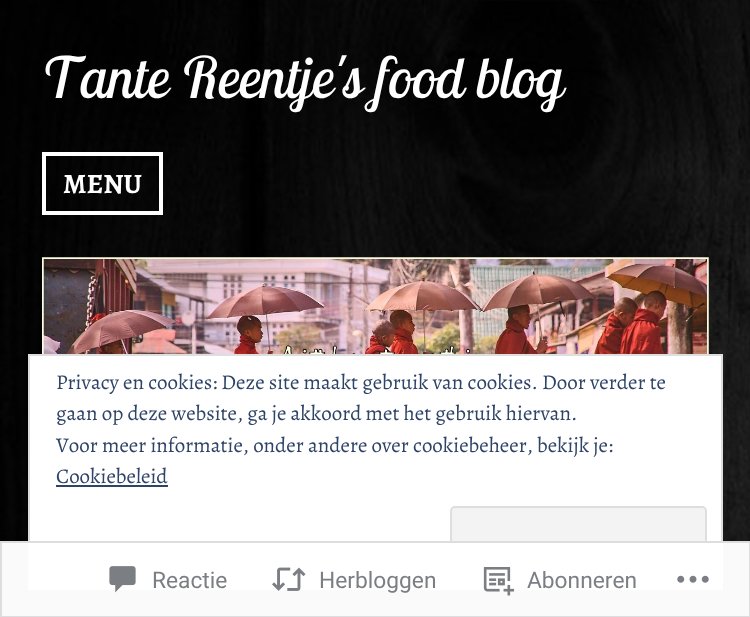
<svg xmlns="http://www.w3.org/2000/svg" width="750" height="617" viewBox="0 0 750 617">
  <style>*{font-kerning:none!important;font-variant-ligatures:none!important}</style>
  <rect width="100%" height="100%" fill="rgb(255,255,255)"/>
  <image x="0" y="0" width="750" height="617" href="pic1.png"/>
  <text x="42" y="98" font-family="Lobster Two" font-size="56.9" font-style="italic" fill="rgb(255,255,255)">Tante Reentje's food blog</text>
  <rect x="44" y="154" width="117" height="59" fill="none" stroke="rgb(255,255,255)" stroke-width="4"/>
  <text x="63" y="193" font-family="Alegreya" font-size="28" font-weight="bold" fill="rgb(255,255,255)">MENU</text>
  <image x="42" y="257" width="667" height="97" href="pic2.png"/>
  <rect x="29" y="355" width="693" height="234" fill="rgb(255,255,255)" stroke="rgb(222,222,222)" stroke-width="2"/>
  <g font-family="Alegreya" font-size="21" fill="rgb(46,68,103)">
    <text>
      <tspan x="56" y="389">Privacy en cookies: Deze site maakt gebruik van cookies. Door verder te</tspan>
      <tspan x="56" y="420">gaan op deze website, ga je akkoord met het gebruik hiervan.</tspan>
      <tspan x="56" y="452">Voor meer informatie, onder andere over cookiebeheer,</tspan>
    </text>
    <text x="537" y="452">bekijk je:</text>
    <text x="56" y="483">Cookiebeleid</text>
  </g>
  <rect x="56" y="485" width="112" height="2" fill="rgb(46,68,103)"/>
  <rect x="451" y="507" width="255" height="66" rx="4" fill="rgb(243,243,243)" stroke="rgb(222,222,222)" stroke-width="2"/>
  <rect x="0" y="541" width="750" height="76" fill="rgba(255,255,255,0.98)"/>
  <rect x="1" y="542" width="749" height="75" fill="none" stroke="rgba(220,220,222,0.98)" stroke-width="2"/>
  <image x="109" y="566" width="27" height="27" href="pic3.png"/>
  <text x="152" y="588" font-family="Roboto" font-size="22.75" fill="rgb(123,127,132)">Reactie</text>
  <image x="272" y="567" width="34" height="24" href="pic4.png"/>
  <text x="319" y="588" font-family="Roboto" font-size="22.75" fill="rgb(123,127,132)">Herbloggen</text>
  <image x="483" y="567" width="32" height="29" href="pic5.png"/>
  <text x="527" y="588" font-family="Roboto" font-size="22.75" fill="rgb(123,127,132)">Abonneren</text>
  <image x="677" y="575" width="32" height="8" href="pic6.png"/>
</svg>
